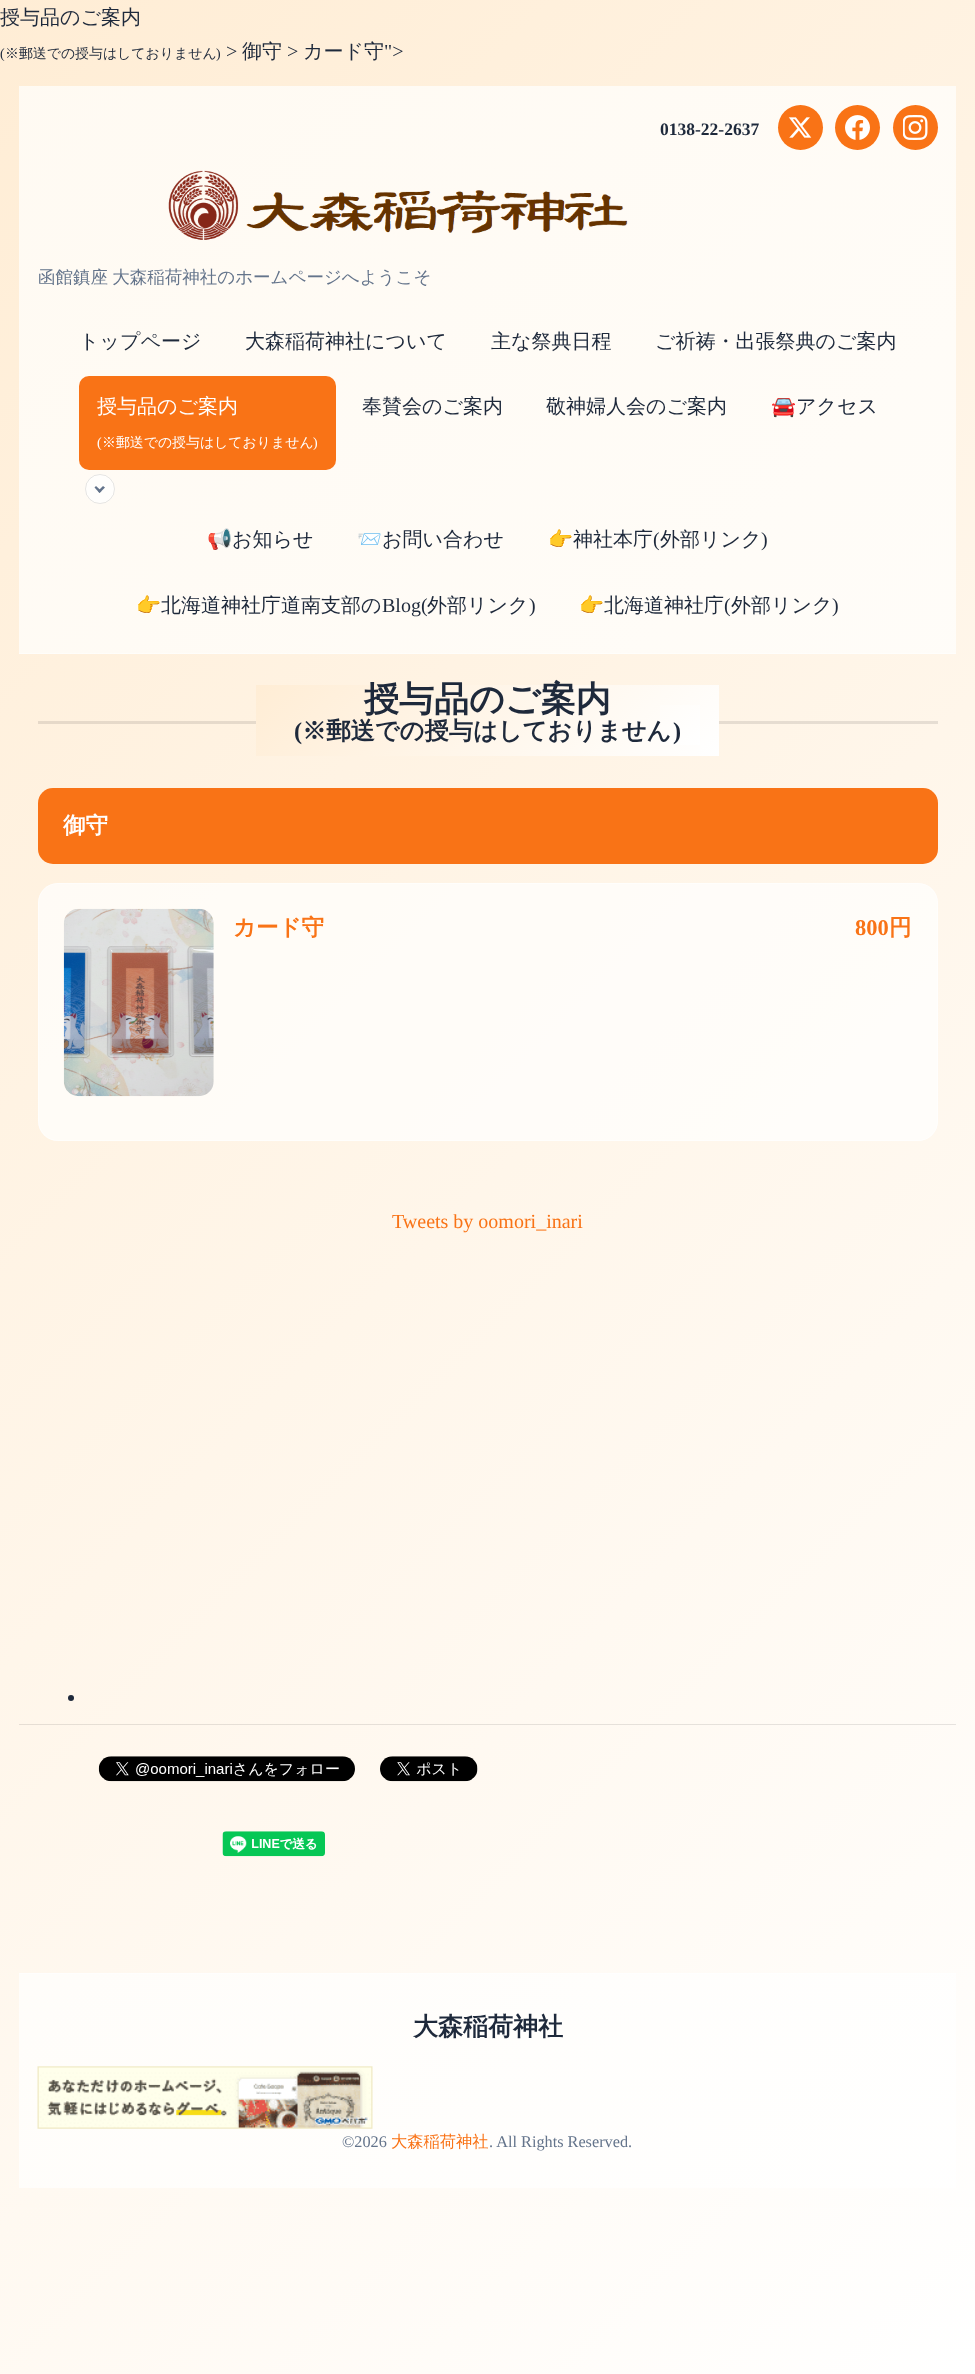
<svg xmlns="http://www.w3.org/2000/svg" width="975" height="2374" viewBox="0 0 975 2374">
  <defs>
    <linearGradient id="g1" gradientUnits="userSpaceOnUse" x1="-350" y1="350" x2="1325" y2="2025"><stop offset="0" stop-color="rgb(255,237,213)"/><stop offset="1" stop-color="rgb(255,255,255)"/></linearGradient>
    <linearGradient id="g2" gradientUnits="userSpaceOnUse" x1="-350" y1="350" x2="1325" y2="2025"><stop offset="0" stop-color="rgb(255,250,242)"/><stop offset="1" stop-color="rgb(255,255,255)"/></linearGradient>
    <linearGradient id="g3" gradientUnits="userSpaceOnUse" x1="-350" y1="350" x2="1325" y2="2025"><stop offset="0" stop-color="rgb(255,253,249)"/><stop offset="1" stop-color="rgb(255,255,255)"/></linearGradient>
    <linearGradient id="g4" gradientUnits="userSpaceOnUse" x1="-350" y1="350" x2="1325" y2="2025"><stop offset="0" stop-color="rgb(230,213,192)"/><stop offset="1" stop-color="rgb(230,230,230)"/></linearGradient>
    <linearGradient id="g5" gradientUnits="userSpaceOnUse" x1="354" y1="587" x2="621" y2="854"><stop offset="0" stop-color="rgb(255,237,213)"/><stop offset="1" stop-color="rgb(255,255,255)"/></linearGradient>
    <linearGradient id="g6" gradientUnits="userSpaceOnUse" x1="366" y1="594" x2="609" y2="836"><stop offset="0" stop-color="rgb(255,237,213)"/><stop offset="1" stop-color="rgb(255,255,255)"/></linearGradient>
  </defs>
  <rect width="100%" height="100%" fill="rgb(255,255,255)"/>
  <rect x="0" y="0" width="975" height="2374" fill="url(#g1)"/>
  <rect x="19" y="86" width="937" height="567" fill="url(#g2)"/>
  <rect x="19" y="653" width="937" height="1" fill="url(#g3)"/>
  <rect x="19" y="1974" width="937" height="214" fill="url(#g2)"/>
  <rect x="19" y="1973" width="937" height="1" fill="url(#g3)"/>
  <rect x="19" y="1724" width="937" height="1" fill="url(#g4)"/>
  <rect x="38" y="721" width="900" height="3" fill="url(#g4)"/>
  <text x="0" y="24" font-family="WenQuanYi Zen Hei" font-size="20" font-weight="500" fill="rgb(30,41,59)">授与品のご案内</text>
  <text x="0" y="58" font-family="Liberation Serif" font-size="13.9" fill="rgb(30,41,59)">(</text>
  <text x="5" y="58" font-family="WenQuanYi Zen Hei" font-size="13.9" font-weight="500" fill="rgb(30,41,59)">※郵送での授与はしておりません</text>
  <text x="216" y="58" font-family="Liberation Serif" font-size="13.9" fill="rgb(30,41,59)">)</text>
  <text x="226" y="58" font-family="Liberation Serif" font-size="20" fill="rgb(30,41,59)">&gt;</text>
  <text x="242" y="58" font-family="WenQuanYi Zen Hei" font-size="20" font-weight="500" fill="rgb(30,41,59)">御守</text>
  <text x="287" y="58" font-family="Liberation Serif" font-size="20" fill="rgb(30,41,59)">&gt;</text>
  <text x="303" y="58" font-family="WenQuanYi Zen Hei" font-size="20" font-weight="500" fill="rgb(30,41,59)">カード守</text>
  <text x="384" y="58" font-family="Liberation Serif" font-size="20" fill="rgb(30,41,59)">"&gt;</text>
  <text x="660" y="135" font-family="Liberation Serif" font-size="17.5" font-weight="bold" fill="rgb(30,41,59)">0138-22-2637</text>
  <circle cx="800.5" cy="127.5" r="22.5" fill="rgb(249,115,22)"/>
  <image x="788" y="117" width="24" height="21" href="pic1.png"/>
  <circle cx="857.5" cy="127.5" r="22.5" fill="rgb(249,115,22)"/>
  <image x="845" y="115" width="25" height="25" href="pic2.png"/>
  <circle cx="915.5" cy="127.5" r="22.5" fill="rgb(249,115,22)"/>
  <image x="903" y="115" width="25" height="25" href="pic3.png"/>
  <image x="168" y="170" width="460" height="70" href="pic4.png"/>
  <text x="38" y="283" word-spacing="-1" font-family="WenQuanYi Zen Hei" font-size="17.5" font-weight="500" fill="rgb(100,116,139)">函館鎮座 大森稲荷神社のホームページへようこそ</text>
  <g font-family="WenQuanYi Zen Hei" font-size="20" font-weight="500" fill="rgb(30,41,59)">
    <text x="79" y="348">トップページ</text>
    <text x="245" y="348">大森稲荷神社について</text>
    <text x="491" y="348">主な祭典日程</text>
    <text x="655" y="348">ご祈祷・出張祭典のご案内</text>
  </g>
  <rect x="79" y="376" width="257" height="94" rx="10" fill="rgb(249,115,22)"/>
  <text x="97" y="413" font-family="WenQuanYi Zen Hei" font-size="20" font-weight="500" fill="rgb(255,255,255)">授与品のご案内</text>
  <text x="97" y="447" font-family="Liberation Serif" font-size="13.9" fill="rgb(255,255,255)">(</text>
  <text x="102" y="447" font-family="WenQuanYi Zen Hei" font-size="13.9" font-weight="500" fill="rgb(255,255,255)">※郵送での授与はしておりません</text>
  <text x="313" y="447" font-family="Liberation Serif" font-size="13.9" fill="rgb(255,255,255)">)</text>
  <circle cx="100" cy="489" r="15" fill="rgb(255,254,252)"/>
  <circle cx="100" cy="489" r="14.5" fill="none" stroke="rgba(0,0,0,0.1)"/>
  <path d="M103 486L105 487.5L99.5 493L98 491Z" fill="rgb(100,116,139)"/>
  <path d="M96 486L101.5 491L99.5 493L94.5 487.5Z" fill="rgb(100,116,139)"/>
  <g font-family="WenQuanYi Zen Hei" font-size="20" font-weight="500" fill="rgb(30,41,59)">
    <text x="362" y="413">奉賛会のご案内</text>
    <text x="546" y="413">敬神婦人会のご案内</text>
  </g>
  <text x="771" y="413" font-family="Noto Color Emoji" font-size="20" fill="rgb(30,41,59)">🚘</text>
  <text x="796" y="413" font-family="WenQuanYi Zen Hei" font-size="20" font-weight="500" fill="rgb(30,41,59)">アクセス</text>
  <text x="207" y="546" font-family="Noto Color Emoji" font-size="20" fill="rgb(30,41,59)">📢</text>
  <text x="232" y="546" font-family="WenQuanYi Zen Hei" font-size="20" font-weight="500" fill="rgb(30,41,59)">お知らせ</text>
  <text x="357" y="546" font-family="Noto Color Emoji" font-size="20" fill="rgb(30,41,59)">📨</text>
  <text x="382" y="546" font-family="WenQuanYi Zen Hei" font-size="20" font-weight="500" fill="rgb(30,41,59)">お問い合わせ</text>
  <text x="548" y="546" font-family="Noto Color Emoji" font-size="20" fill="rgb(30,41,59)">👉</text>
  <text x="573" y="546" font-family="WenQuanYi Zen Hei" font-size="20" font-weight="500" fill="rgb(30,41,59)">神社本庁</text>
  <text x="653" y="546" font-family="Liberation Serif" font-size="20" fill="rgb(30,41,59)">(</text>
  <text x="660" y="546" font-family="WenQuanYi Zen Hei" font-size="20" font-weight="500" fill="rgb(30,41,59)">外部リンク</text>
  <text x="761" y="546" font-family="Liberation Serif" font-size="20" fill="rgb(30,41,59)">)</text>
  <text x="136" y="612" font-family="Noto Color Emoji" font-size="20" fill="rgb(30,41,59)">👉</text>
  <text x="161" y="612" font-family="WenQuanYi Zen Hei" font-size="20" font-weight="500" fill="rgb(30,41,59)">北海道神社庁道南支部の</text>
  <text x="382" y="612" font-family="Liberation Serif" font-size="20" fill="rgb(30,41,59)">Blog(</text>
  <text x="427" y="612" font-family="WenQuanYi Zen Hei" font-size="20" font-weight="500" fill="rgb(30,41,59)">外部リンク</text>
  <text x="529" y="612" font-family="Liberation Serif" font-size="20" fill="rgb(30,41,59)">)</text>
  <text x="579" y="612" font-family="Noto Color Emoji" font-size="20" fill="rgb(30,41,59)">👉</text>
  <text x="604" y="612" font-family="WenQuanYi Zen Hei" font-size="20" font-weight="500" fill="rgb(30,41,59)">北海道神社庁</text>
  <text x="724" y="612" font-family="Liberation Serif" font-size="20" fill="rgb(30,41,59)">(</text>
  <text x="731" y="612" font-family="WenQuanYi Zen Hei" font-size="20" font-weight="500" fill="rgb(30,41,59)">外部リンク</text>
  <text x="832" y="612" font-family="Liberation Serif" font-size="20" fill="rgb(30,41,59)">)</text>
  <rect x="256" y="685" width="463" height="71" fill="url(#g5)"/>
  <rect x="660" y="705" width="40" height="40" fill="url(#g6)"/>
  <text x="364" y="711" font-family="WenQuanYi Zen Hei" font-size="35" font-weight="bold" fill="rgb(30,41,59)">授与品のご案内</text>
  <text x="294" y="739" font-family="Liberation Serif" font-size="24.25" font-weight="bold" fill="rgb(30,41,59)">(</text>
  <text x="302" y="739" font-family="WenQuanYi Zen Hei" font-size="24.25" font-weight="bold" fill="rgb(30,41,59)">※郵送での授与はしておりません</text>
  <text x="673" y="739" font-family="Liberation Serif" font-size="24.25" font-weight="bold" fill="rgb(30,41,59)">)</text>
  <rect x="38" y="788" width="900" height="76" rx="15" fill="rgb(249,115,22)"/>
  <text x="63" y="833" font-family="WenQuanYi Zen Hei" font-size="22.5" font-weight="bold" fill="rgb(255,255,255)">御守</text>
  <rect x="38" y="883" width="900" height="258" rx="20" fill="rgba(255,255,255,0.7)"/>
  <rect x="38.5" y="883.5" width="899" height="257" rx="19.5" fill="none" stroke="rgba(255,255,255,0.5)"/>
  <image x="63" y="908" width="151" height="189" href="pic5.png"/>
  <text x="233" y="935" font-family="WenQuanYi Zen Hei" font-size="22.5" font-weight="bold" fill="rgb(249,115,22)">カード守</text>
  <text x="855" y="935" font-family="Liberation Serif" font-size="22.5" font-weight="bold" fill="rgb(249,115,22)">800</text>
  <text x="889" y="935" font-family="WenQuanYi Zen Hei" font-size="22.5" font-weight="bold" fill="rgb(249,115,22)">円</text>
  <text x="392" y="1228" font-family="Liberation Serif" font-size="20" fill="rgb(249,115,22)">Tweets by oomori_inari</text>
  <circle cx="71" cy="1698" r="3" fill="rgb(30,41,59)"/>
  <image x="98" y="1756" width="257" height="26" href="pic6.png"/>
  <image x="380" y="1756" width="98" height="26" href="pic7.png"/>
  <image x="222" y="1831" width="103" height="26" href="pic8.png"/>
  <text x="413" y="2035" font-family="WenQuanYi Zen Hei" font-size="25" font-weight="bold" fill="rgb(30,41,59)">大森稲荷神社</text>
  <image x="37" y="2066" width="336" height="63" href="pic9.png"/>
  <text x="342" y="2147" font-family="Liberation Serif" font-size="16.25" fill="rgb(100,116,139)">©2026</text>
  <text x="391" y="2147" font-family="WenQuanYi Zen Hei" font-size="16.25" font-weight="500" fill="rgb(249,115,22)">大森稲荷神社</text>
  <text x="489" y="2147" font-family="Liberation Serif" font-size="16.25" fill="rgb(100,116,139)">. All Rights Reserved.</text>
</svg>
